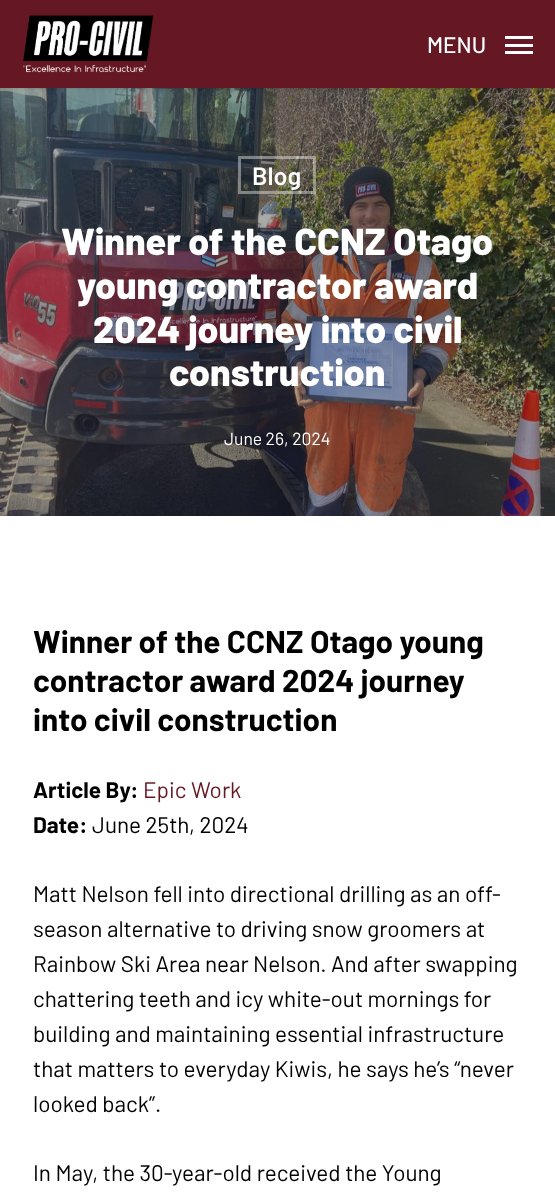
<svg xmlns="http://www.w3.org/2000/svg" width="555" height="1195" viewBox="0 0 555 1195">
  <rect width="100%" height="100%" fill="rgb(255,255,255)"/>
  <image x="0" y="88" width="555" height="428" href="pic2.png"/>
  <rect x="0" y="0" width="555" height="88" fill="rgba(0,0,0,0.22)" filter="blur(2px)"/>
  <rect x="0" y="0" width="555" height="88" fill="rgb(101,24,35)"/>
  <image x="23" y="15" width="131" height="58" href="pic1.png"/>
  <text x="427" y="53" font-family="Barlow" font-size="22.5" font-weight="500" fill="rgb(255,255,255)">MENU</text>
  <rect x="505" y="36" width="28" height="3" fill="rgb(255,255,255)"/>
  <rect x="505" y="51" width="28" height="3" fill="rgb(255,255,255)"/>
  <rect x="505" y="44" width="28" height="3" fill="rgb(255,255,255)"/>
  <rect x="239.5" y="157.5" width="75" height="35" fill="none" stroke="rgba(255,255,255,0.4)" stroke-width="3"/>
  <text x="252" y="185" font-family="Barlow" font-size="25" font-weight="600" fill="rgb(255,255,255)">Blog</text>
  <g font-family="Barlow" font-size="37.5" font-weight="800" fill="rgb(255,255,255)">
    <text x="61" y="255">Winner of the CCNZ Otago</text>
    <text x="77" y="299">young contractor award</text>
    <text x="93" y="343">2024 journey into civil</text>
    <text x="169" y="386">construction</text>
  </g>
  <text x="224" y="445" font-family="Barlow" font-size="17.5" fill="rgb(255,255,255)">June 26, 2024</text>
  <g font-family="Barlow" font-size="31.5" font-weight="bold" fill="rgb(0,0,0)">
    <text>
      <tspan x="33" y="653">Winner of the CCNZ Otago young</tspan>
      <tspan x="33" y="692">contractor award 2024 journey</tspan>
      <tspan x="33" y="731">into civil construction</tspan>
    </text>
  </g>
  <text x="33" y="798" font-family="Barlow" font-size="22.5" font-weight="bold" fill="rgb(0,0,0)">Article By:</text>
  <text x="143" y="798" font-family="Barlow" font-size="22.5" fill="rgb(101,24,35)">Epic Work</text>
  <text x="33" y="833" font-family="Barlow" font-size="22.5" font-weight="bold" fill="rgb(0,0,0)">Date:</text>
  <g font-family="Barlow" font-size="22.5" fill="rgb(0,0,0)">
    <text x="92" y="833">June 25th, 2024</text>
    <text>
      <tspan x="33" y="902">Matt Nelson fell into directional drilling as an off-</tspan>
      <tspan x="33" y="937">season alternative to driving snow groomers at</tspan>
      <tspan x="33" y="972">Rainbow Ski Area near Nelson. And after swapping</tspan>
      <tspan x="33" y="1007">chattering teeth and icy white-out mornings for</tspan>
      <tspan x="33" y="1042">building and maintaining essential infrastructure</tspan>
      <tspan x="33" y="1077">that matters to everyday Kiwis, he says he’s “never</tspan>
      <tspan x="33" y="1112">looked back”.</tspan>
    </text>
    <text x="33" y="1181">In May, the 30-year-old received the Young</text>
  </g>
</svg>
